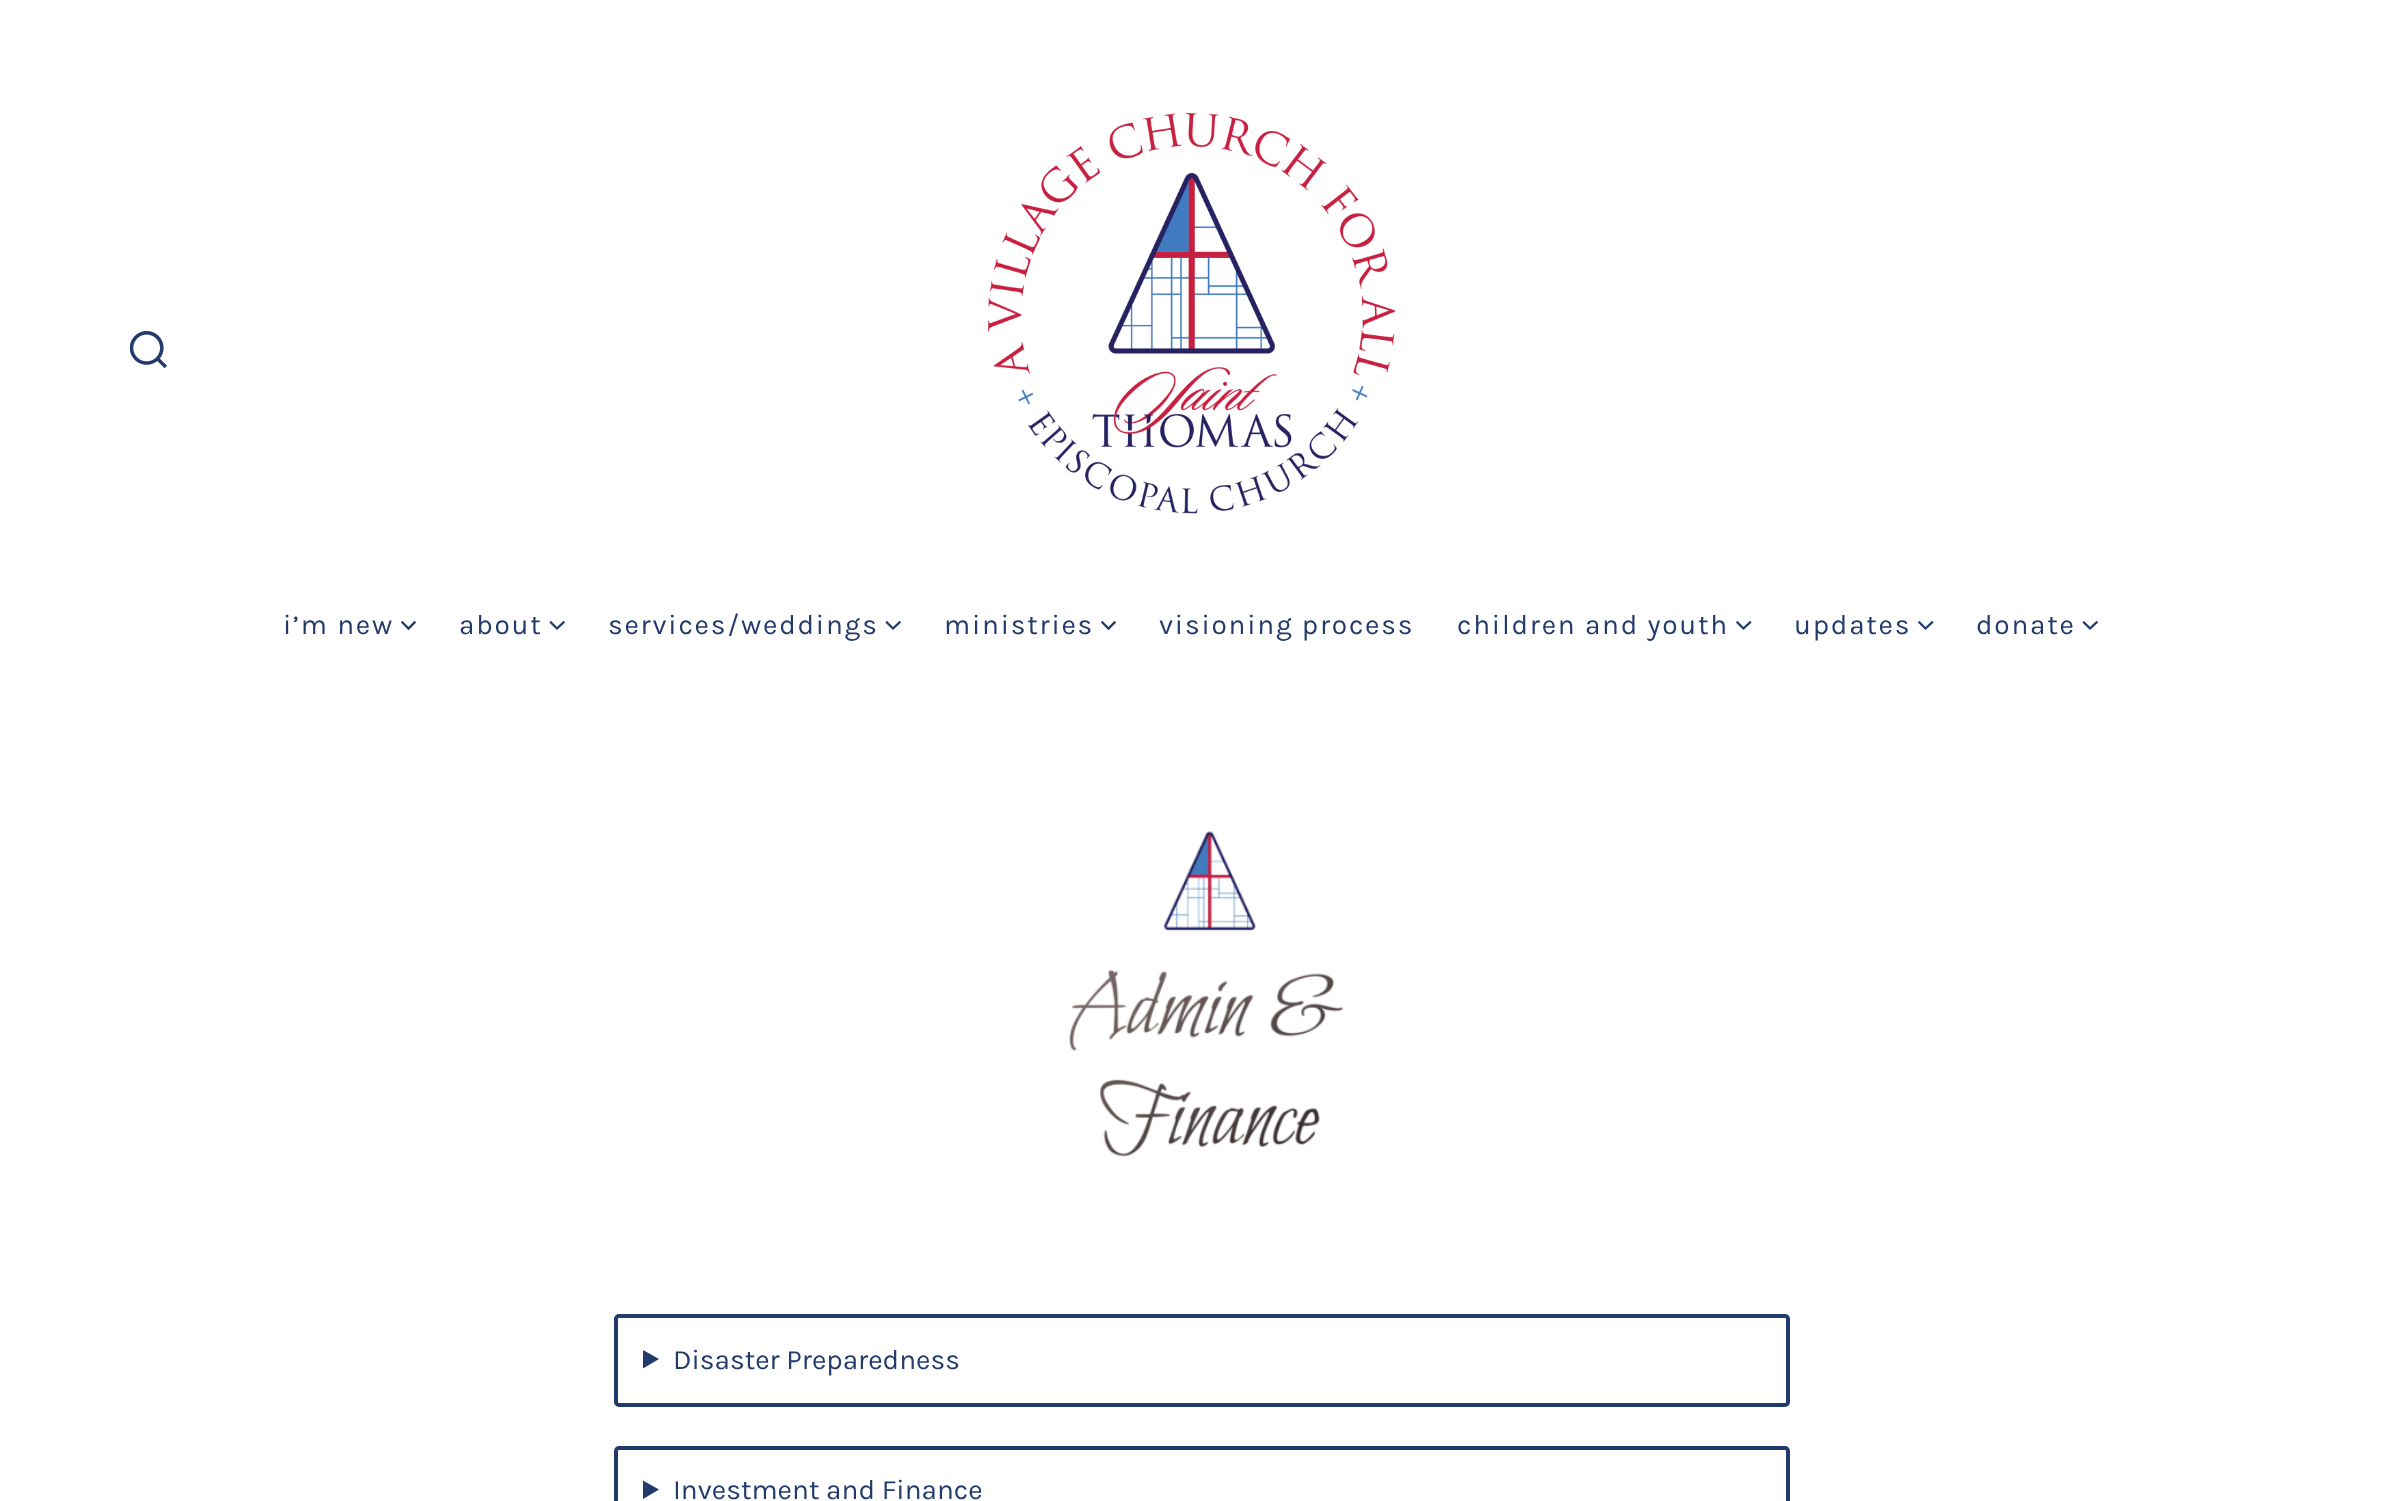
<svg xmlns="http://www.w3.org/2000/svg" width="2402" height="1501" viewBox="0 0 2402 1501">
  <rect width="100%" height="100%" fill="rgb(255,255,255)"/>
  <image x="130" y="331" width="37" height="38" href="pic1.png"/>
  <image x="988" y="112" width="408" height="402" href="pic2.png"/>
  <text x="283" y="634" font-family="Karla" font-size="28" letter-spacing="1.75" fill="rgb(35,58,108)">i’m new</text>
  <path d="M402.5 622.5L408.5 628.5L414.5 622.5" fill="none" stroke="rgb(35,58,108)" stroke-width="2.3" stroke-linecap="square"/>
  <text x="459" y="634" font-family="Karla" font-size="28" letter-spacing="1.75" fill="rgb(35,58,108)">about</text>
  <path d="M551 622.5L557 628.5L563.5 622.5" fill="none" stroke="rgb(35,58,108)" stroke-width="2.3" stroke-linecap="square"/>
  <text x="608" y="634" font-family="Karla" font-size="28" letter-spacing="1.75" fill="rgb(35,58,108)">services/weddings</text>
  <path d="M887 622.5L893 628.5L899.5 622.5" fill="none" stroke="rgb(35,58,108)" stroke-width="2.3" stroke-linecap="square"/>
  <text x="944" y="634" font-family="Karla" font-size="28" letter-spacing="1.75" fill="rgb(35,58,108)">ministries</text>
  <path d="M1102.5 622.5L1108.5 628.5L1114.5 622.5" fill="none" stroke="rgb(35,58,108)" stroke-width="2.3" stroke-linecap="square"/>
  <g font-family="Karla" font-size="28" letter-spacing="1.75" fill="rgb(35,58,108)">
    <text x="1159" y="634">visioning process</text>
    <text x="1457" y="634">children and youth</text>
  </g>
  <path d="M1737.5 622.5L1743.5 628.5L1750 622.5" fill="none" stroke="rgb(35,58,108)" stroke-width="2.3" stroke-linecap="square"/>
  <text x="1794" y="634" font-family="Karla" font-size="28" letter-spacing="1.75" fill="rgb(35,58,108)">updates</text>
  <path d="M1919.5 622.5L1925.5 628.5L1932 622.5" fill="none" stroke="rgb(35,58,108)" stroke-width="2.3" stroke-linecap="square"/>
  <text x="1976" y="634" font-family="Karla" font-size="28" letter-spacing="1.75" fill="rgb(35,58,108)">donate</text>
  <path d="M2084 622.5L2090 628.5L2096.5 622.5" fill="none" stroke="rgb(35,58,108)" stroke-width="2.3" stroke-linecap="square"/>
  <image x="1069" y="831" width="275" height="326" href="pic3.png"/>
  <rect x="616" y="1316" width="1172" height="89" rx="3" fill="none" stroke="rgb(35,58,108)" stroke-width="4"/>
  <path d="M643 1350L659 1359L643 1368.5Z" fill="rgb(35,58,108)"/>
  <text x="673" y="1369" font-family="Karla" font-size="28" fill="rgb(35,58,108)">Disaster Preparedness</text>
  <rect x="616" y="1448" width="1172" height="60" rx="3" fill="none" stroke="rgb(35,58,108)" stroke-width="4"/>
  <path d="M643 1480.5L659 1489.5L643 1499Z" fill="rgb(35,58,108)"/>
  <text x="673" y="1499" font-family="Karla" font-size="28" fill="rgb(35,58,108)">Investment and Finance</text>
</svg>
